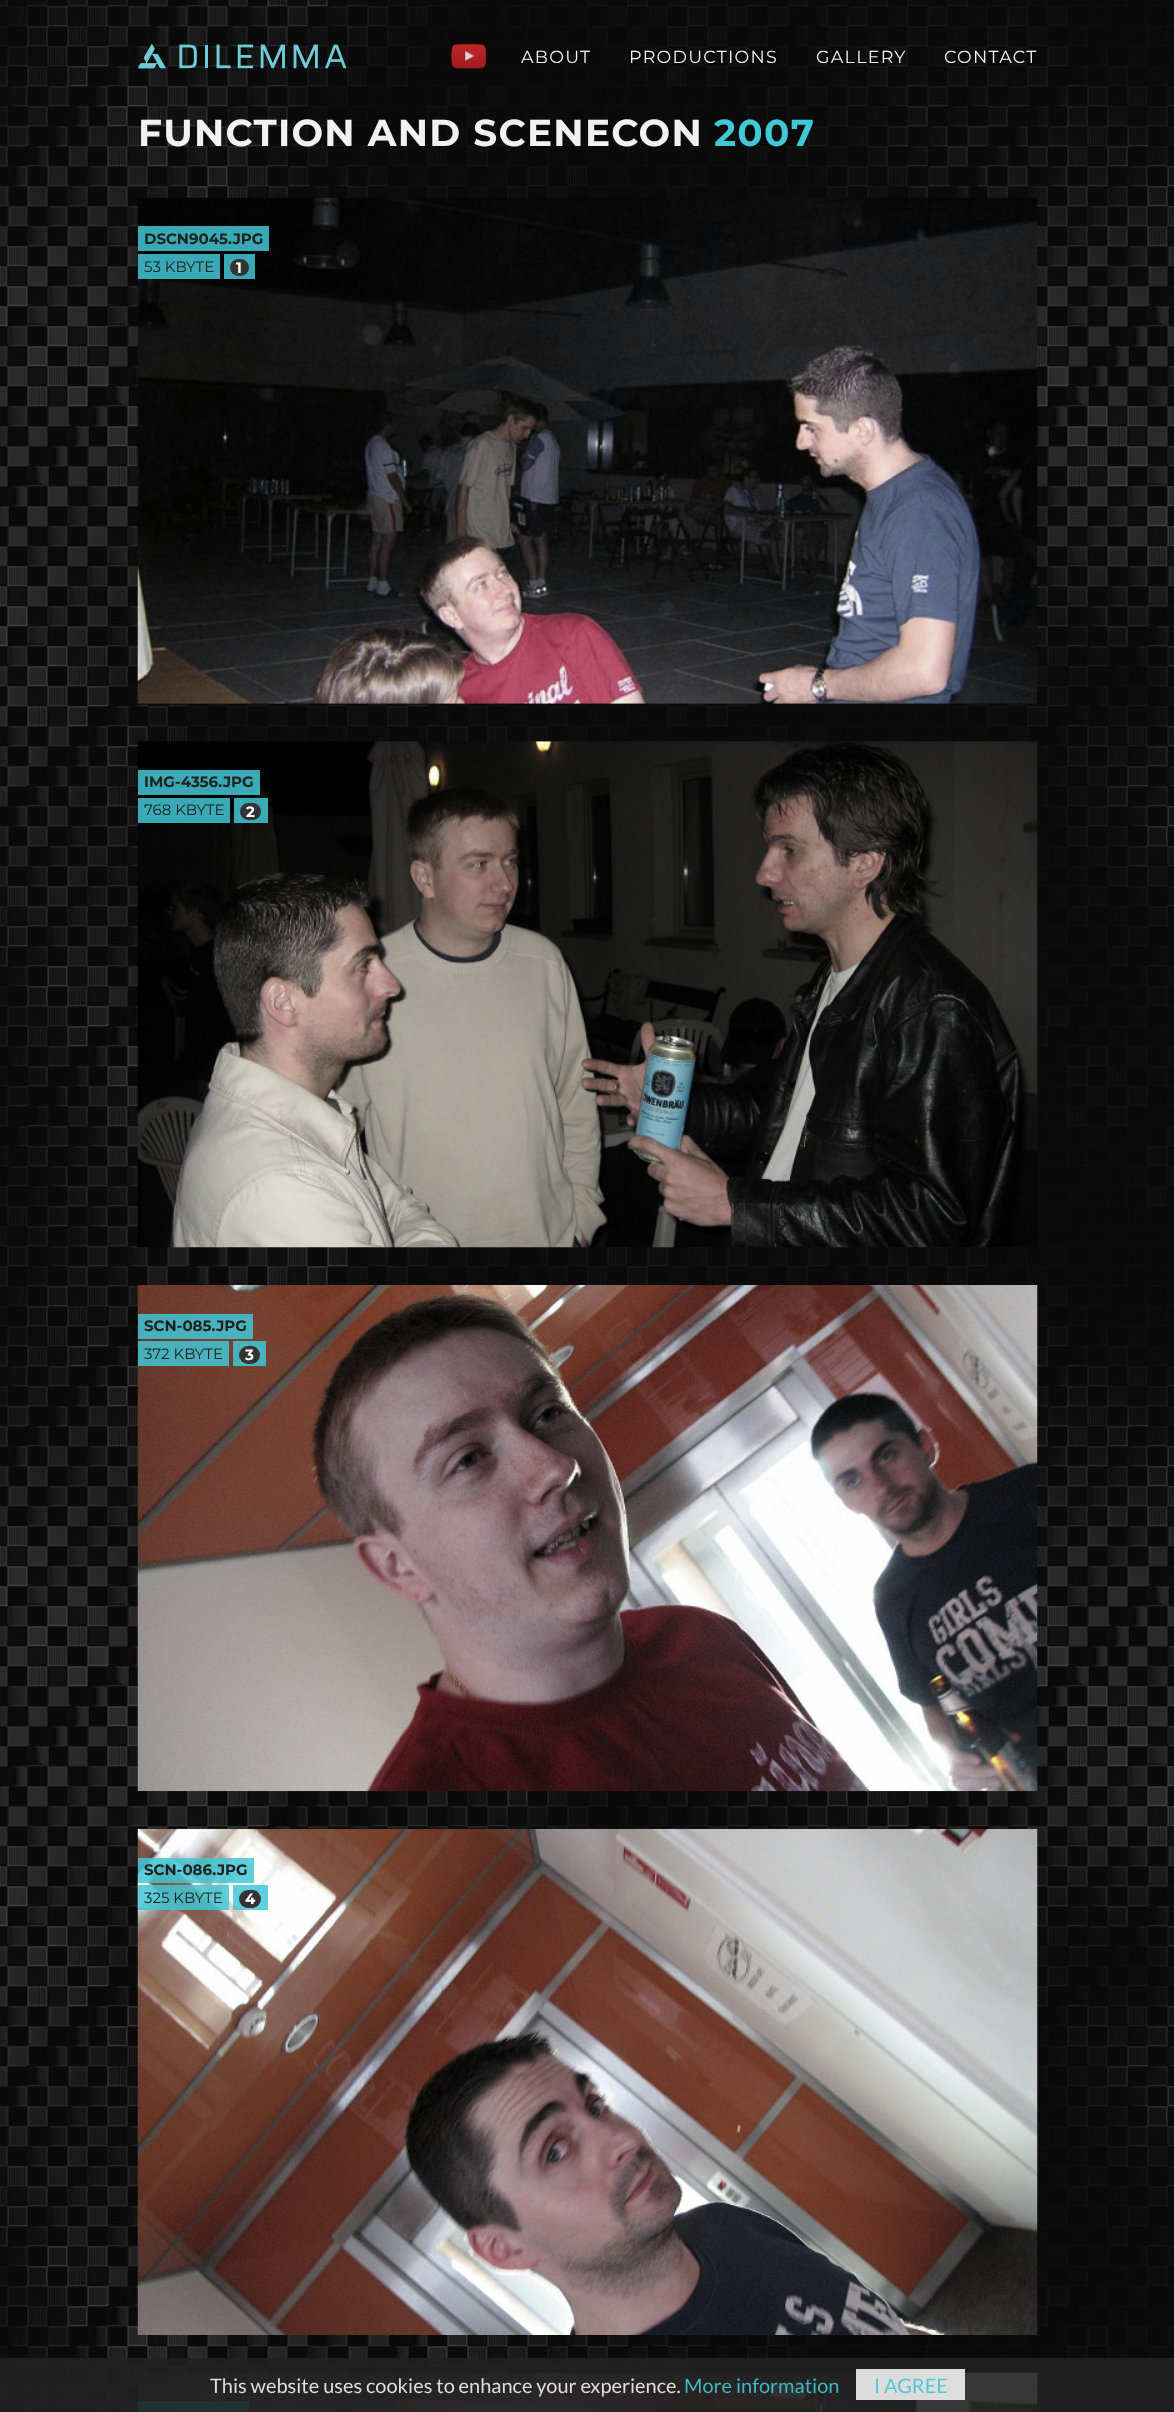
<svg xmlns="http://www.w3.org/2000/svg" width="1174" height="2412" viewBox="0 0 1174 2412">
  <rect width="100%" height="100%" fill="rgb(255,255,255)"/>
  <image x="0" y="0" width="1174" height="2412" href="pic1.png"/>
  <image x="138" y="44" width="209" height="25" href="pic2.png"/>
  <image x="451" y="43" width="36" height="26" href="pic3.png"/>
  <g font-family="Montserrat" font-size="17.5" letter-spacing="1.25" fill="rgb(241,241,241)">
    <text x="521" y="63">ABOUT</text>
    <text x="629" y="63">PRODUCTIONS</text>
    <text x="816" y="63">GALLERY</text>
    <text x="944" y="63">CONTACT</text>
  </g>
  <text x="138" y="146" font-family="Montserrat" font-size="37.5" font-weight="bold" letter-spacing="1.25" fill="rgb(241,241,241)">FUNCTION AND SCENECON</text>
  <text x="714" y="146" font-family="Montserrat" font-size="37.5" font-weight="bold" letter-spacing="1.25" fill="rgb(66,199,213)">2007</text>
  <image x="137" y="197" width="901" height="507" href="pic4.png"/>
  <rect x="138" y="226" width="131" height="25" fill="rgba(66,199,213,0.85)"/>
  <text x="144" y="244" font-family="Montserrat" font-size="15" font-weight="bold" fill="rgb(32,32,32)">DSCN9045.JPG</text>
  <rect x="138" y="254" width="82" height="25" fill="rgba(66,199,213,0.85)"/>
  <text x="144" y="272" font-family="Montserrat" font-size="15" fill="rgb(32,32,32)">53 KBYTE</text>
  <rect x="224" y="254" width="31" height="25" fill="rgba(66,199,213,0.85)"/>
  <rect x="230" y="259" width="19" height="17" rx="8.5" fill="rgb(51,51,51)"/>
  <text x="236" y="273" font-family="Montserrat" font-size="15" font-weight="bold" fill="rgb(255,255,255)">1</text>
  <image x="137" y="741" width="901" height="507" href="pic5.png"/>
  <rect x="138" y="770" width="122" height="25" fill="rgba(66,199,213,0.85)"/>
  <text x="144" y="787" font-family="Montserrat" font-size="15" font-weight="bold" fill="rgb(32,32,32)">IMG-4356.JPG</text>
  <rect x="138" y="798" width="92" height="25" fill="rgba(66,199,213,0.85)"/>
  <text x="144" y="815" font-family="Montserrat" font-size="15" fill="rgb(32,32,32)">768 KBYTE</text>
  <rect x="234" y="798" width="34" height="25" fill="rgba(66,199,213,0.85)"/>
  <rect x="240" y="803" width="21" height="17" rx="8.5" fill="rgb(51,51,51)"/>
  <text x="246" y="817" font-family="Montserrat" font-size="15" font-weight="bold" fill="rgb(255,255,255)">2</text>
  <image x="137" y="1285" width="901" height="507" href="pic6.png"/>
  <rect x="138" y="1314" width="115" height="25" fill="rgba(66,199,213,0.85)"/>
  <text x="144" y="1331" font-family="Montserrat" font-size="15" font-weight="bold" fill="rgb(32,32,32)">SCN-085.JPG</text>
  <rect x="138" y="1341" width="91" height="25" fill="rgba(66,199,213,0.85)"/>
  <text x="144" y="1359" font-family="Montserrat" font-size="15" fill="rgb(32,32,32)">372 KBYTE</text>
  <rect x="233" y="1341" width="33" height="25" fill="rgba(66,199,213,0.85)"/>
  <rect x="239" y="1346" width="21" height="18" rx="9" fill="rgb(51,51,51)"/>
  <text x="245" y="1360" font-family="Montserrat" font-size="15" font-weight="bold" fill="rgb(255,255,255)">3</text>
  <image x="137" y="1828" width="901" height="507" href="pic7.png"/>
  <rect x="138" y="1858" width="116" height="25" fill="rgba(66,199,213,0.85)"/>
  <text x="144" y="1875" font-family="Montserrat" font-size="15" font-weight="bold" fill="rgb(32,32,32)">SCN-086.JPG</text>
  <rect x="138" y="1885" width="91" height="25" fill="rgba(66,199,213,0.85)"/>
  <text x="144" y="1903" font-family="Montserrat" font-size="15" fill="rgb(32,32,32)">325 KBYTE</text>
  <rect x="233" y="1885" width="35" height="25" fill="rgba(66,199,213,0.85)"/>
  <rect x="239" y="1890" width="22" height="18" rx="9" fill="rgb(51,51,51)"/>
  <text x="245" y="1904" font-family="Montserrat" font-size="15" font-weight="bold" fill="rgb(255,255,255)">4</text>
  <image x="137" y="2372" width="901" height="40" href="pic8.png"/>
  <rect x="138" y="2401" width="111" height="11" fill="rgba(66,199,213,0.85)"/>
  <rect x="0" y="2358" width="1174" height="54" fill="rgba(33,33,33,0.9)"/>
  <text x="210" y="2393" font-family="Lato" font-size="20" fill="rgb(221,221,221)">This website uses cookies to enhance your experience.</text>
  <text x="684" y="2393" font-family="Lato" font-size="20" fill="rgb(63,183,195)">More information</text>
  <rect x="856" y="2369" width="109" height="31" fill="rgba(241,241,241,0.9)"/>
  <text x="874" y="2393" font-family="Lato" font-size="20" fill="rgb(82,201,214)">I AGREE</text>
</svg>
